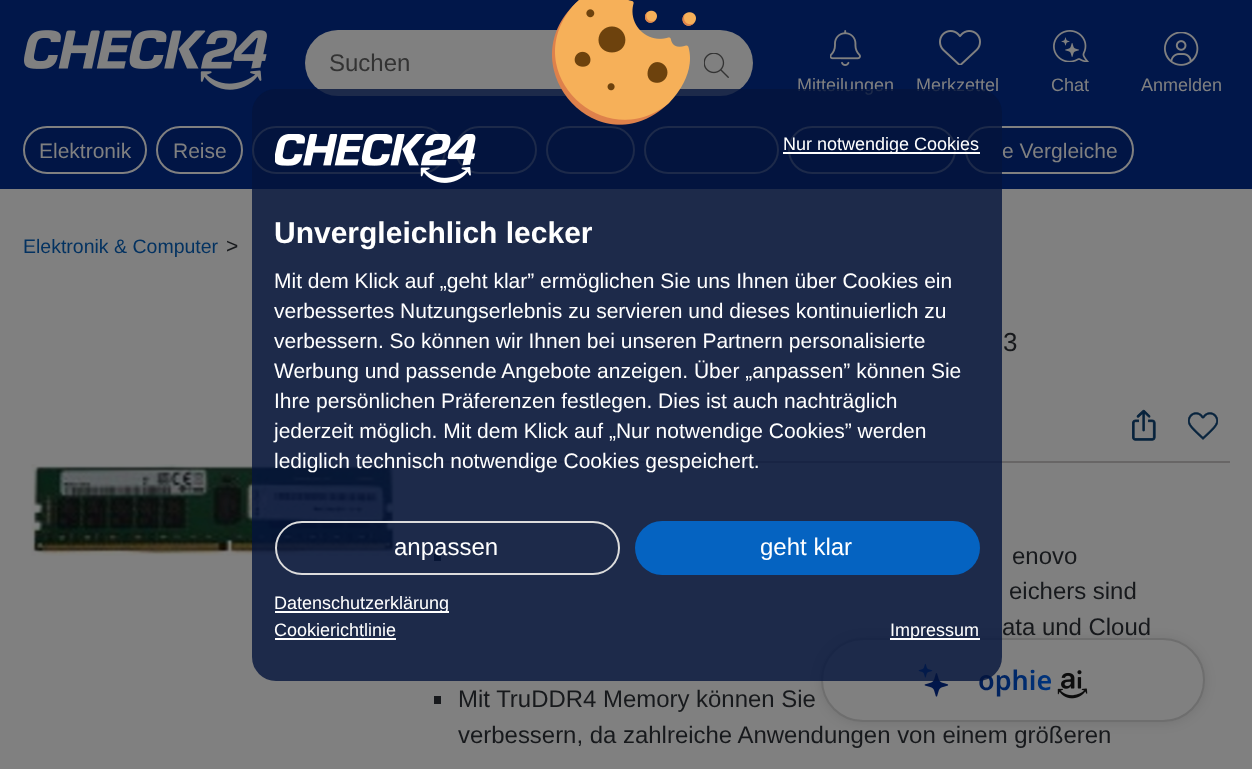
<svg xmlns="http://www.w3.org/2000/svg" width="1252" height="769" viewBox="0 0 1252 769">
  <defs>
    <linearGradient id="g1" gradientUnits="userSpaceOnUse" x1="963" y1="680" x2="1055" y2="680"><stop offset="0" stop-color="rgb(1,23,74)"/><stop offset="1" stop-color="rgb(0,54,128)"/></linearGradient>
  </defs>
  <rect width="100%" height="100%" fill="rgb(128,128,128)"/>
  <rect x="0" y="0" width="1252" height="189" fill="rgb(1,23,74)"/>
  <image x="24" y="30" width="243" height="60" href="pic1.png"/>
  <rect x="305" y="30" width="448" height="66" rx="33" fill="rgb(128,128,128)"/>
  <text x="329" y="71" font-family="Liberation Sans" font-size="24" fill="rgb(51,51,51)">Suchen</text>
  <image x="704" y="53" width="25" height="25" href="pic2.png"/>
  <image x="830" y="30" width="31" height="36" href="pic3.png"/>
  <text x="797" y="91" font-family="Liberation Sans" font-size="18" fill="rgb(128,128,128)">Mitteilungen</text>
  <image x="939" y="30" width="42" height="35" href="pic4.png"/>
  <text x="916" y="91" font-family="Liberation Sans" font-size="18" fill="rgb(128,128,128)">Merkzettel</text>
  <image x="1053" y="30" width="36" height="32" href="pic5.png"/>
  <text x="1051" y="91" font-family="Liberation Sans" font-size="18" fill="rgb(128,128,128)">Chat</text>
  <image x="1164" y="32" width="35" height="34" href="pic6.png"/>
  <text x="1141" y="91" font-family="Liberation Sans" font-size="18" fill="rgb(128,128,128)">Anmelden</text>
  <rect x="24" y="127" width="122" height="46" rx="23" fill="rgb(1,21,69)" stroke="rgb(128,128,128)" stroke-width="2"/>
  <text x="39" y="158" font-family="Liberation Sans" font-size="21" fill="rgb(128,128,128)">Elektronik</text>
  <rect x="157" y="127" width="85" height="46" rx="23" fill="rgb(1,21,69)" stroke="rgb(128,128,128)" stroke-width="2"/>
  <text x="173" y="158" font-family="Liberation Sans" font-size="21" fill="rgb(128,128,128)">Reise</text>
  <rect x="253" y="127" width="192" height="46" rx="23" fill="rgb(1,21,69)" stroke="rgb(128,128,128)" stroke-width="2"/>
  <rect x="456" y="127" width="80" height="46" rx="23" fill="rgb(1,21,69)" stroke="rgb(128,128,128)" stroke-width="2"/>
  <rect x="547" y="127" width="87" height="46" rx="23" fill="rgb(1,21,69)" stroke="rgb(128,128,128)" stroke-width="2"/>
  <rect x="645" y="127" width="133" height="46" rx="23" fill="rgb(1,21,69)" stroke="rgb(128,128,128)" stroke-width="2"/>
  <rect x="789" y="127" width="166" height="46" rx="23" fill="rgb(1,21,69)" stroke="rgb(128,128,128)" stroke-width="2"/>
  <rect x="966" y="127" width="167" height="46" rx="23" fill="rgb(1,21,69)" stroke="rgb(128,128,128)" stroke-width="2"/>
  <text x="1002" y="158" font-family="Liberation Sans" font-size="21" fill="rgb(128,128,128)">e Vergleiche</text>
  <text x="23" y="253" font-family="Liberation Sans" font-size="19.5" fill="rgb(3,50,97)">Elektronik &amp; Computer</text>
  <text x="226" y="253" font-family="Liberation Sans" font-size="21" fill="rgb(23,25,28)">&gt;</text>
  <image x="31" y="464" width="364" height="92" href="pic7.png"/>
  <text x="1003" y="351" font-family="Liberation Sans" font-size="26" fill="rgb(23,25,28)">3</text>
  <rect x="435" y="461" width="795" height="2" fill="rgb(104,102,102)"/>
  <image x="1132" y="409" width="24" height="32" href="pic8.png"/>
  <image x="1188" y="412" width="30" height="28" href="pic9.png"/>
  <rect x="434" y="554" width="7" height="7" fill="rgb(23,25,28)"/>
  <g font-family="Liberation Sans" font-size="23.95" fill="rgb(23,25,28)">
    <text x="1012" y="564">enovo</text>
    <text x="1009" y="599">eichers sind</text>
    <text x="1002" y="635">ata und Cloud</text>
  </g>
  <rect x="434" y="696" width="7" height="8" fill="rgb(23,25,28)"/>
  <g font-family="Liberation Sans" font-size="23.95" fill="rgb(23,25,28)">
    <text>
      <tspan x="458" y="707">Mit TruDDR4 Memory können Sie</tspan>
      <tspan x="458" y="743">verbessern, da zahlreiche Anwendungen von einem größeren</tspan>
    </text>
  </g>
  <rect x="821" y="639" width="384" height="84" rx="42" fill="rgba(0,0,0,0.1)" filter="blur(6px)"/>
  <rect x="822" y="639" width="382" height="82" rx="41" fill="rgb(128,128,128)" stroke="rgb(110,110,110)" stroke-width="2"/>
  <image x="918" y="663" width="31" height="34" href="pic10.png"/>
  <text x="978" y="690" font-family="Noto Sans" font-size="27" font-weight="600" fill="url(#g1)">ophie</text>
  <image x="1057" y="670" width="31" height="29" href="pic11.png"/>
  <rect x="252" y="89" width="750" height="592" rx="24" fill="rgba(4,20,60,0.8)"/>
  <image x="552" y="0" width="144" height="125" href="pic12.png"/>
  <image x="275" y="134" width="201" height="49" href="pic13.png"/>
  <rect x="783" y="152" width="197" height="2" fill="rgb(255,255,255)"/>
  <text x="783" y="150" font-family="Liberation Sans" font-size="18" fill="rgb(255,255,255)">Nur notwendige Cookies</text>
  <text x="274" y="243" font-family="Liberation Sans" font-size="30" font-weight="bold" fill="rgb(255,255,255)">Unvergleichlich lecker</text>
  <g font-family="Liberation Sans" font-size="21" fill="rgb(255,255,255)">
    <text>
      <tspan x="274" y="288">Mit dem Klick auf „geht klar” ermöglichen Sie uns Ihnen über Cookies ein</tspan>
      <tspan x="274" y="318">verbessertes Nutzungserlebnis zu servieren und dieses kontinuierlich zu</tspan>
      <tspan x="274" y="348">verbessern. So können wir Ihnen bei unseren Partnern personalisierte</tspan>
      <tspan x="274" y="378">Werbung und passende Angebote anzeigen. Über „anpassen” können Sie</tspan>
      <tspan x="274" y="408">Ihre persönlichen Präferenzen festlegen. Dies ist auch nachträglich</tspan>
      <tspan x="274" y="438">jederzeit möglich. Mit dem Klick auf „Nur notwendige Cookies” werden</tspan>
      <tspan x="274" y="468">lediglich technisch notwendige Cookies gespeichert.</tspan>
    </text>
  </g>
  <rect x="276" y="522" width="343" height="52" rx="26" fill="none" stroke="rgb(220,220,220)" stroke-width="2"/>
  <text x="394" y="555" font-family="Liberation Sans" font-size="24" fill="rgb(255,255,255)">anpassen</text>
  <rect x="635" y="521" width="345" height="54" rx="27" fill="rgb(5,99,193)"/>
  <text x="760" y="555" font-family="Liberation Sans" font-size="24" fill="rgb(255,255,255)">geht klar</text>
  <rect x="275" y="611" width="174" height="2" fill="rgb(255,255,255)"/>
  <g font-family="Liberation Sans" font-size="18" fill="rgb(255,255,255)">
    <text>
      <tspan x="274" y="609">Datenschutzerklärung</tspan>
      <tspan x="274" y="636">Cookierichtlinie</tspan>
    </text>
  </g>
  <rect x="275" y="638" width="121" height="2" fill="rgb(255,255,255)"/>
  <rect x="890" y="638" width="90" height="2" fill="rgb(255,255,255)"/>
  <text x="890" y="636" font-family="Liberation Sans" font-size="18" fill="rgb(255,255,255)">Impressum</text>
</svg>
